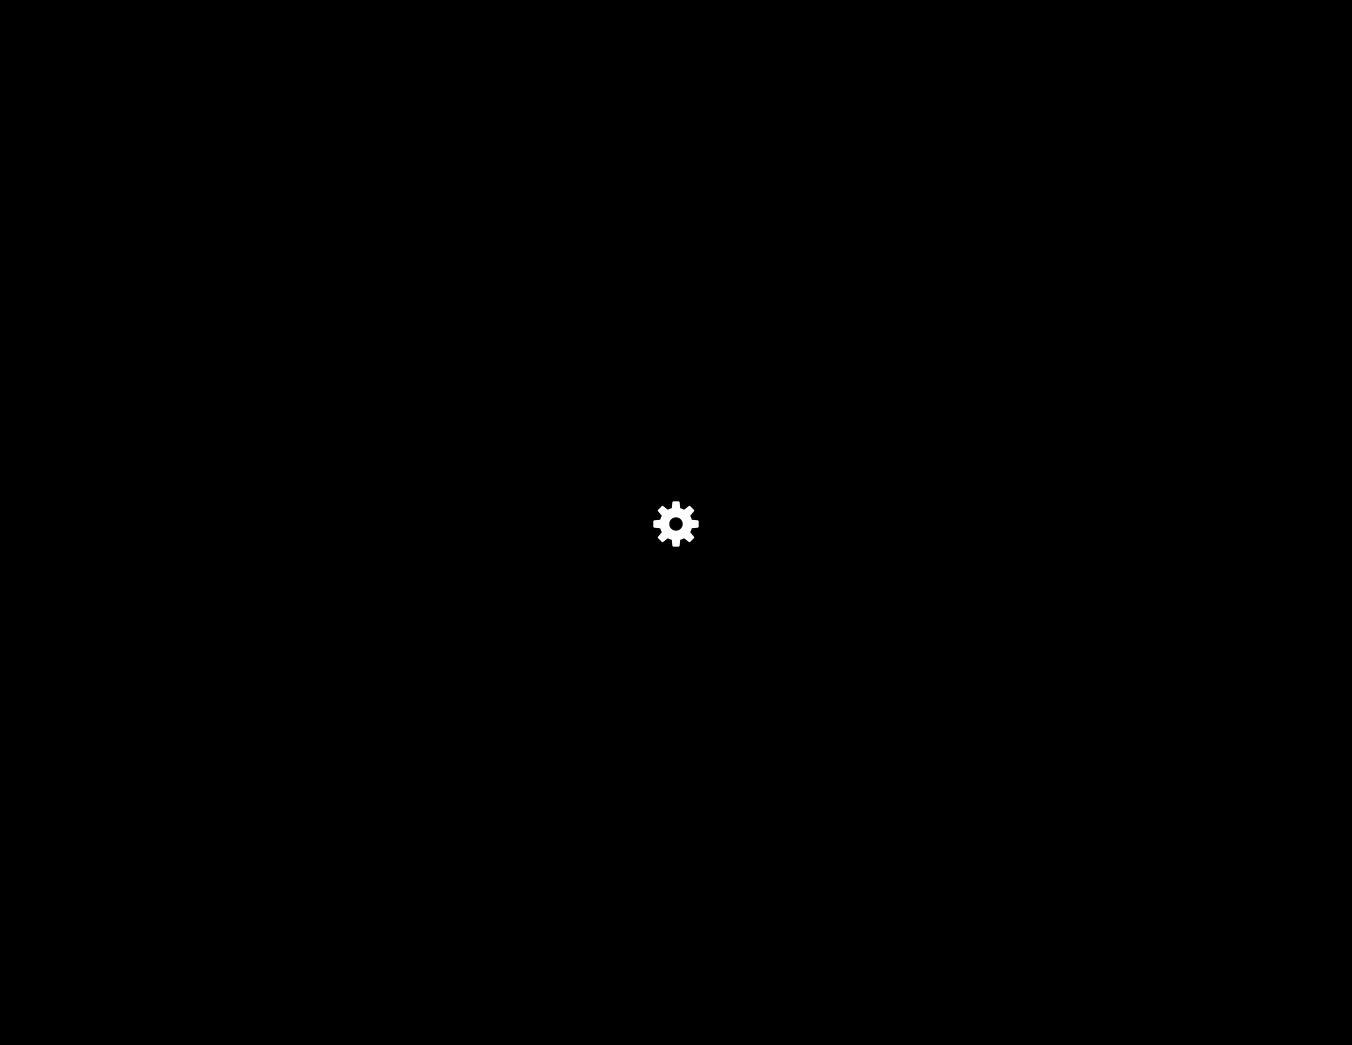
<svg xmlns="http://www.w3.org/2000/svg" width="1352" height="1045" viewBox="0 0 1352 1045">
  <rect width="100%" height="100%" fill="rgb(0,0,0)"/>
  <image x="653" y="501" width="46" height="46" href="pic1.png"/>
</svg>
